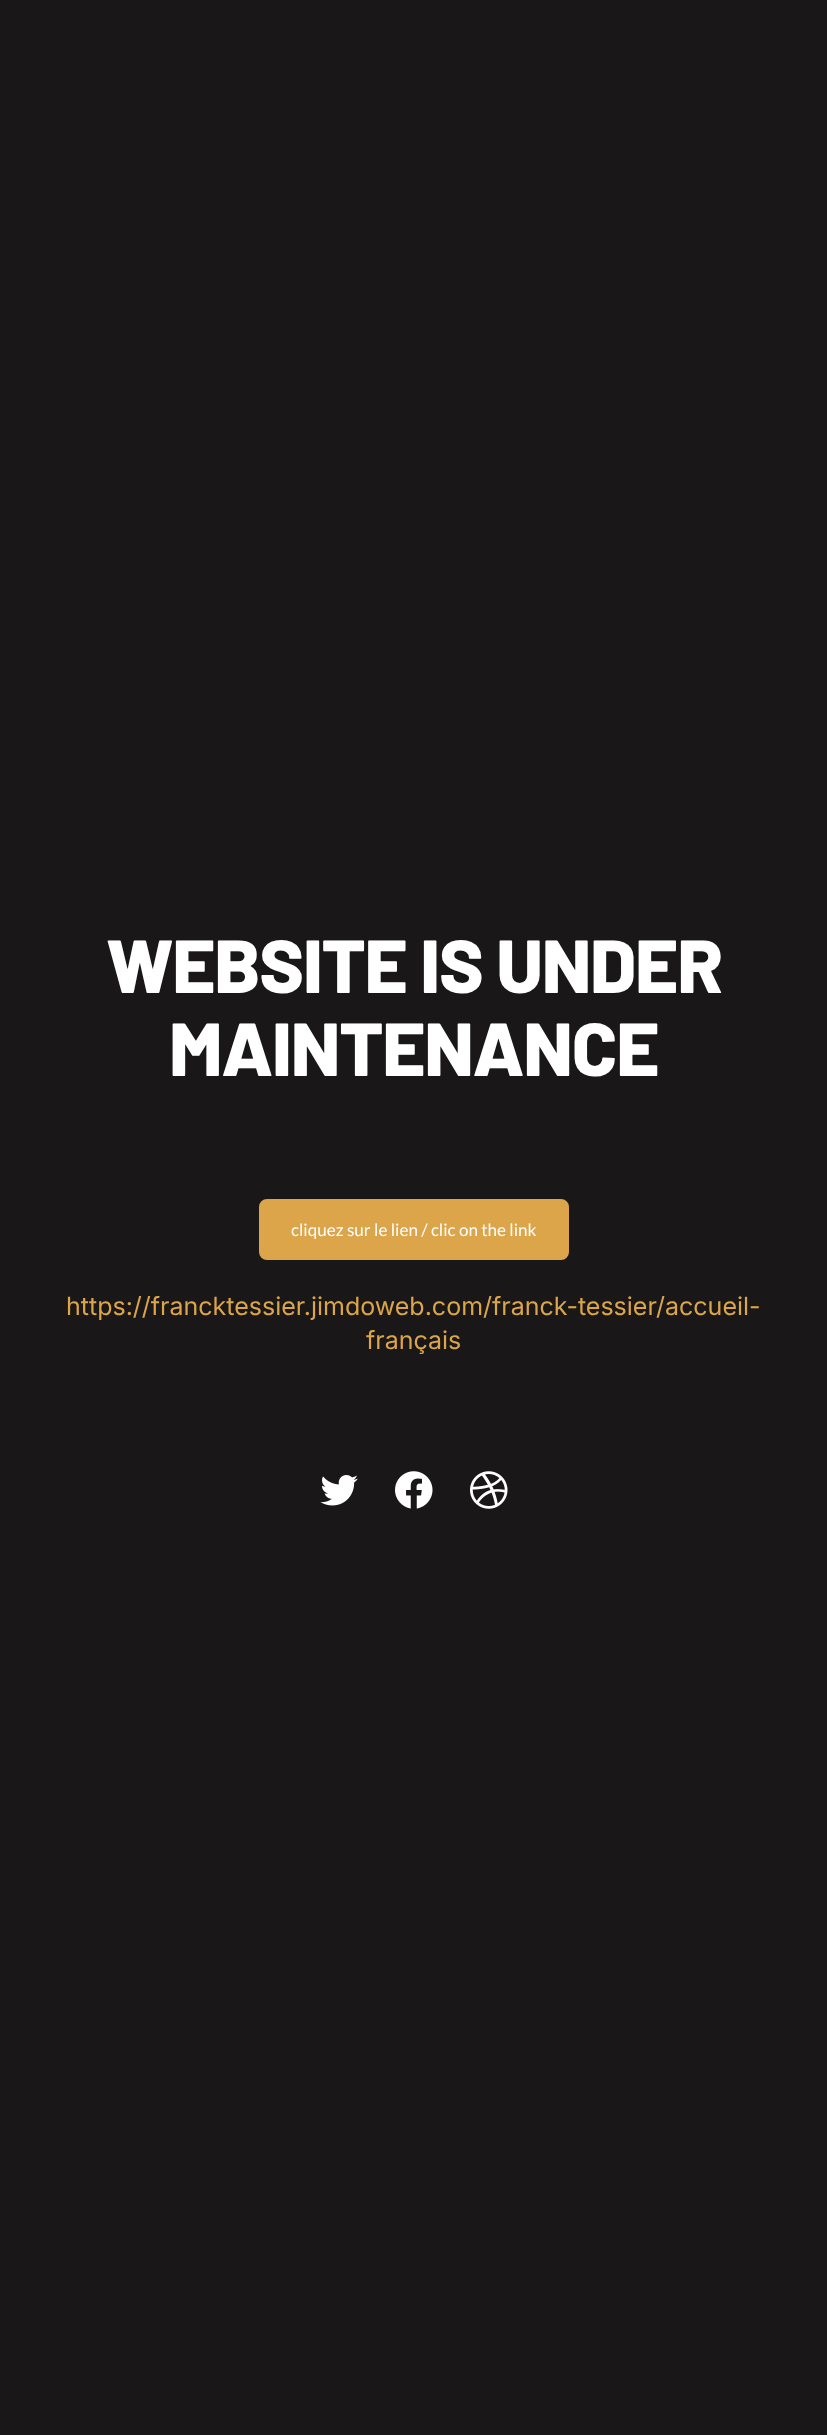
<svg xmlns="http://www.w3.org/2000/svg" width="827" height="2435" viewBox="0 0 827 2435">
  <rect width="100%" height="100%" fill="rgb(25,23,23)"/>
  <g font-family="Barlow" font-size="75" font-weight="800" letter-spacing="-1.25" fill="rgb(255,255,255)">
    <text x="106" y="993">WEBSITE IS UNDER</text>
    <text x="169" y="1076">MAINTENANCE</text>
  </g>
  <rect x="260.5" y="1200.5" width="307" height="58" rx="6.5" fill="rgb(220,165,74)" stroke="rgb(220,165,74)" stroke-width="3"/>
  <text x="291" y="1236" font-family="Lato" font-size="17.1" fill="rgb(255,255,255)">cliquez sur le lien / clic on the link</text>
  <g font-family="Inter" font-size="25" fill="rgb(220,165,74)">
    <text x="66" y="1315">https://francktessier.jimdoweb.com/franck-tessier/accueil-</text>
    <text x="366" y="1349">français</text>
  </g>
  <image x="320" y="1475" width="38" height="31" href="pic1.png"/>
  <image x="395" y="1471" width="38" height="38" href="pic2.png"/>
  <image x="470" y="1471" width="38" height="38" href="pic3.png"/>
</svg>
